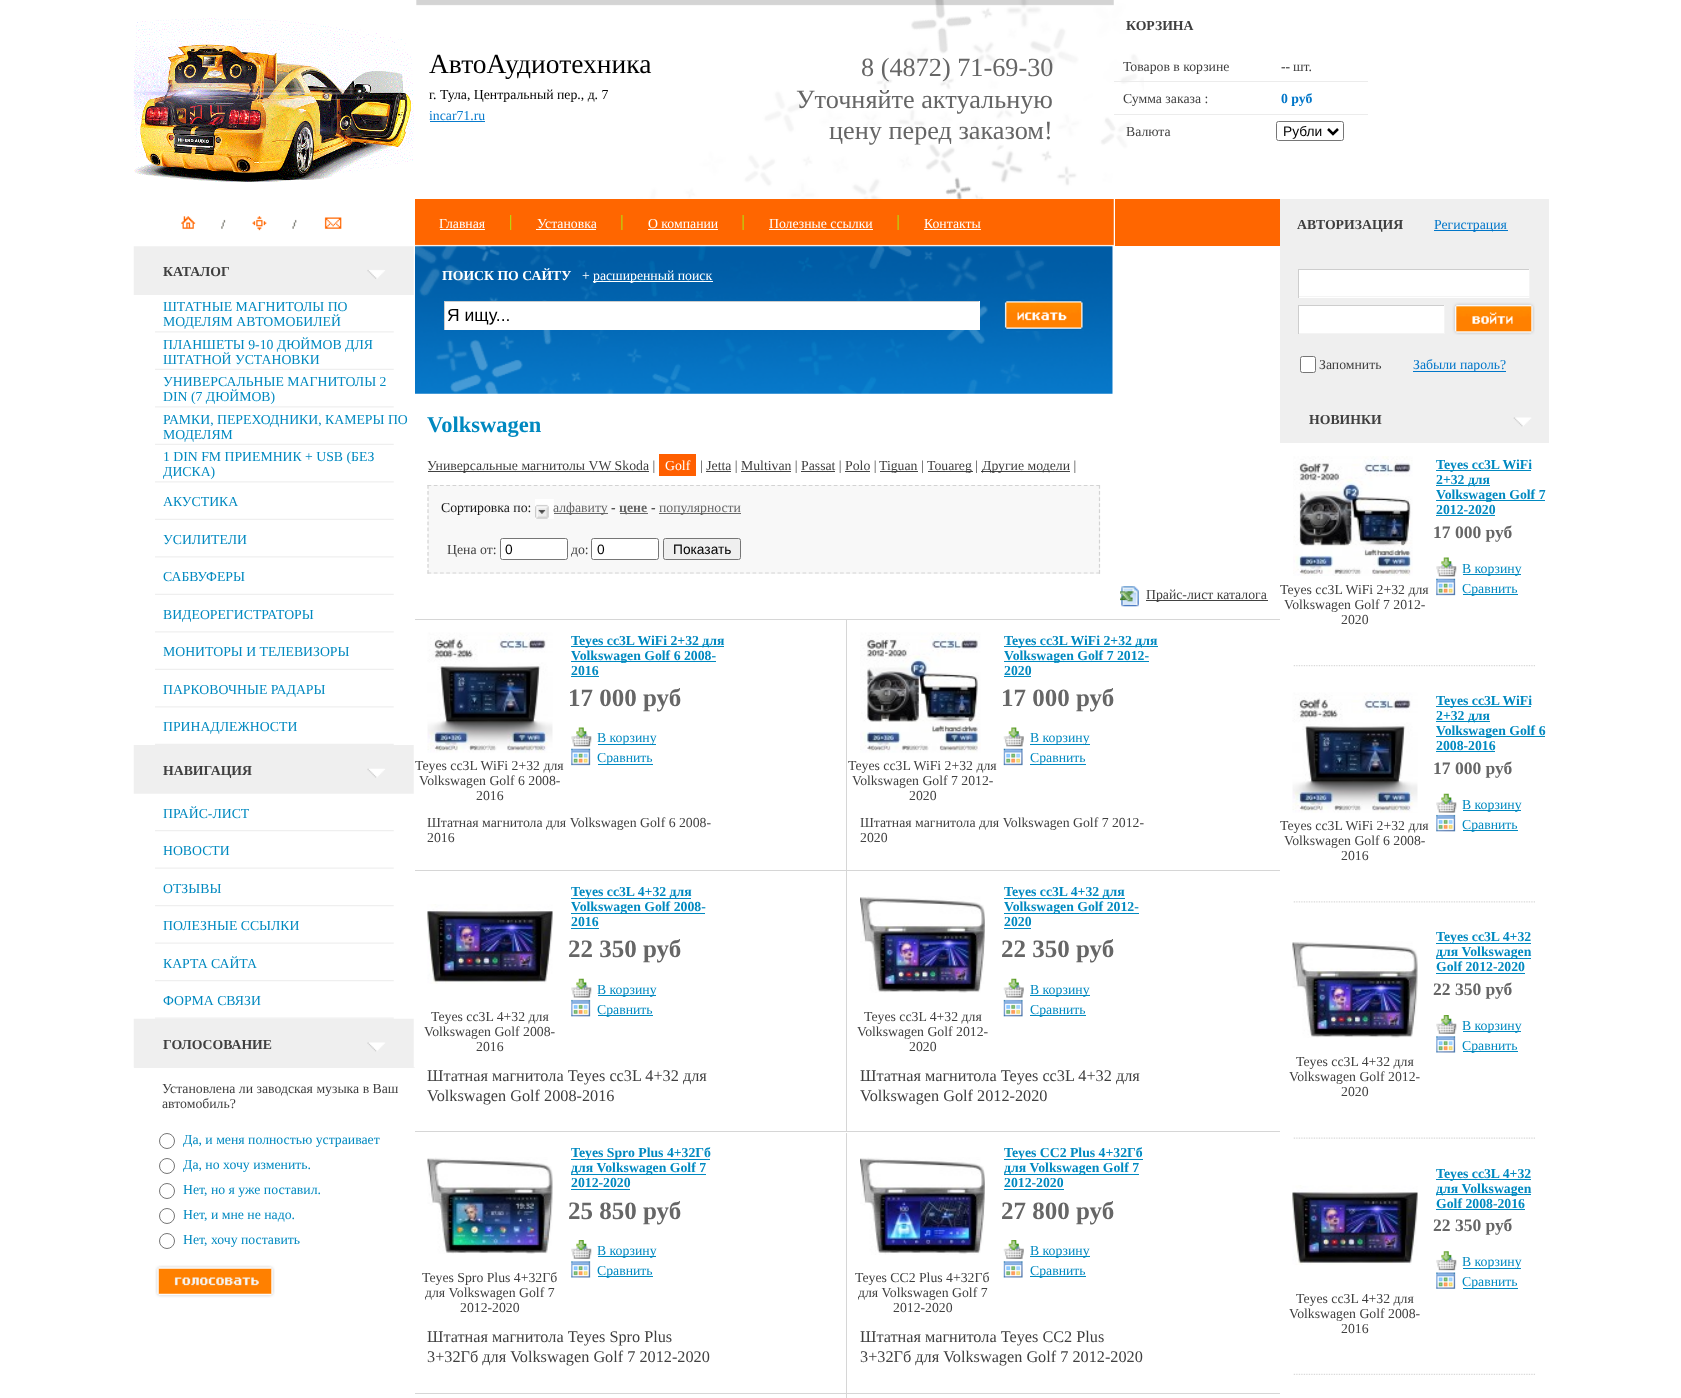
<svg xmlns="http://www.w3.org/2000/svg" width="1681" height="1398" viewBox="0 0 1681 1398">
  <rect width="100%" height="100%" fill="rgb(255,255,255)"/>
  <image x="416" y="0" width="728" height="199" href="pic1.png"/>
  <image x="133" y="18" width="281" height="164" href="pic2.png"/>
  <text x="429" y="73" font-family="Liberation Serif" font-size="27.5" fill="rgb(0,0,0)">АвтоАудиотехника</text>
  <text x="429" y="99" font-family="Liberation Serif" font-size="13.75" fill="rgb(0,0,0)">г. Тула, Центральный пер., д. 7</text>
  <text x="429" y="120" font-family="Liberation Serif" font-size="13.75" fill="rgb(8,123,205)">incar71.ru</text>
  <rect x="430" y="121" width="55" height="1" fill="rgb(8,123,205)"/>
  <g font-family="Liberation Serif" font-size="26.25" fill="rgb(102,102,102)">
    <text x="861" y="76">8 (4872) 71-69-30</text>
    <text x="796" y="108">Уточняйте актуальную</text>
    <text x="829" y="139">цену перед заказом!</text>
  </g>
  <text x="1126" y="30" font-family="Liberation Serif" font-size="13.75" font-weight="bold" fill="rgb(63,63,63)">КОРЗИНА</text>
  <rect x="1114" y="81" width="254" height="1" fill="rgb(236,236,236)"/>
  <text x="1123" y="71" font-family="Liberation Serif" font-size="13.75" fill="rgb(63,63,63)">Товаров в корзине</text>
  <text x="1281" y="71" font-family="Liberation Serif" font-size="13.75" font-weight="bold" fill="rgb(63,63,63)">--</text>
  <text x="1293" y="71" font-family="Liberation Serif" font-size="13.75" fill="rgb(63,63,63)">шт.</text>
  <rect x="1114" y="114" width="254" height="1" fill="rgb(236,236,236)"/>
  <text x="1123" y="103" font-family="Liberation Serif" font-size="13.75" fill="rgb(63,63,63)">Сумма заказа :</text>
  <text x="1281" y="103" font-family="Liberation Serif" font-size="13.75" font-weight="bold" fill="rgb(0,118,201)">0 руб</text>
  <text x="1126" y="136" font-family="Liberation Serif" font-size="13.75" fill="rgb(63,63,63)">Валюта</text>
  <rect x="1276.5" y="121.5" width="67" height="19" rx="2" fill="none" stroke="rgb(118,118,118)"/>
  <path d="M1328 129L1333 134L1338 129" fill="none" stroke="rgb(0,0,0)" stroke-width="2.5"/>
  <text x="1283" y="136" font-family="Liberation Sans" font-size="13.75" fill="rgb(0,0,0)">Рубли</text>
  <image x="181" y="216" width="161" height="15" href="pic3.png"/>
  <rect x="415" y="199" width="865" height="47" fill="rgb(255,102,0)"/>
  <image x="415" y="199" width="700" height="47" href="pic4.png"/>
  <text x="439" y="228" font-family="Liberation Serif" font-size="13.75" fill="rgb(255,255,255)">Главная</text>
  <rect x="440" y="229" width="45" height="1" fill="rgb(255,255,255)"/>
  <image x="510" y="215" width="2" height="15" href="pic5.png"/>
  <text x="537" y="228" font-family="Liberation Serif" font-size="13.75" fill="rgb(255,255,255)">Установка</text>
  <rect x="536" y="229" width="60" height="1" fill="rgb(255,255,255)"/>
  <image x="621" y="215" width="2" height="15" href="pic6.png"/>
  <text x="648" y="228" font-family="Liberation Serif" font-size="13.75" fill="rgb(255,255,255)">О компании</text>
  <rect x="648" y="229" width="70" height="1" fill="rgb(255,255,255)"/>
  <image x="742" y="215" width="2" height="15" href="pic7.png"/>
  <text x="769" y="228" font-family="Liberation Serif" font-size="13.75" fill="rgb(255,255,255)">Полезные ссылки</text>
  <rect x="769" y="229" width="104" height="1" fill="rgb(255,255,255)"/>
  <image x="897" y="215" width="2" height="15" href="pic7.png"/>
  <text x="924" y="228" font-family="Liberation Serif" font-size="13.75" fill="rgb(255,255,255)">Контакты</text>
  <rect x="924" y="229" width="57" height="1" fill="rgb(255,255,255)"/>
  <image x="133" y="246" width="282" height="49" href="pic8.png"/>
  <text x="163" y="276" font-family="Liberation Serif" font-size="13.75" font-weight="bold" fill="rgb(63,63,63)">КАТАЛОГ</text>
  <image x="155" y="331" width="239" height="2" href="pic9.png"/>
  <g font-family="Liberation Serif" font-size="13.75" fill="rgb(0,137,192)">
    <text>
      <tspan x="163" y="311">ШТАТНЫЕ МАГНИТОЛЫ ПО</tspan>
      <tspan x="163" y="326">МОДЕЛЯМ АВТОМОБИЛЕЙ</tspan>
    </text>
  </g>
  <image x="155" y="368" width="239" height="2" href="pic10.png"/>
  <g font-family="Liberation Serif" font-size="13.75" fill="rgb(0,137,192)">
    <text>
      <tspan x="163" y="349">ПЛАНШЕТЫ 9-10 ДЮЙМОВ ДЛЯ</tspan>
      <tspan x="163" y="364">ШТАТНОЙ УСТАНОВКИ</tspan>
    </text>
  </g>
  <image x="155" y="406" width="239" height="2" href="pic9.png"/>
  <g font-family="Liberation Serif" font-size="13.75" fill="rgb(0,137,192)">
    <text>
      <tspan x="163" y="386">УНИВЕРСАЛЬНЫЕ МАГНИТОЛЫ 2</tspan>
      <tspan x="163" y="401">DIN (7 ДЮЙМОВ)</tspan>
    </text>
  </g>
  <image x="155" y="443" width="239" height="2" href="pic10.png"/>
  <g font-family="Liberation Serif" font-size="13.75" fill="rgb(0,137,192)">
    <text>
      <tspan x="163" y="424">РАМКИ, ПЕРЕХОДНИКИ, КАМЕРЫ ПО</tspan>
      <tspan x="163" y="439">МОДЕЛЯМ</tspan>
    </text>
  </g>
  <image x="155" y="481" width="239" height="2" href="pic9.png"/>
  <g font-family="Liberation Serif" font-size="13.75" fill="rgb(0,137,192)">
    <text>
      <tspan x="163" y="461">1 DIN FM ПРИЕМНИК + USB (БЕЗ</tspan>
      <tspan x="163" y="476">ДИСКА)</tspan>
    </text>
  </g>
  <image x="155" y="518" width="239" height="2" href="pic10.png"/>
  <text x="163" y="506" font-family="Liberation Serif" font-size="13.75" fill="rgb(0,137,192)">АКУСТИКА</text>
  <image x="155" y="556" width="239" height="2" href="pic9.png"/>
  <text x="163" y="544" font-family="Liberation Serif" font-size="13.75" fill="rgb(0,137,192)">УСИЛИТЕЛИ</text>
  <image x="155" y="593" width="239" height="2" href="pic10.png"/>
  <text x="163" y="581" font-family="Liberation Serif" font-size="13.75" fill="rgb(0,137,192)">САБВУФЕРЫ</text>
  <image x="155" y="631" width="239" height="2" href="pic9.png"/>
  <text x="163" y="619" font-family="Liberation Serif" font-size="13.75" fill="rgb(0,137,192)">ВИДЕОРЕГИСТРАТОРЫ</text>
  <image x="155" y="668" width="239" height="2" href="pic10.png"/>
  <text x="163" y="656" font-family="Liberation Serif" font-size="13.75" fill="rgb(0,137,192)">МОНИТОРЫ И ТЕЛЕВИЗОРЫ</text>
  <image x="155" y="706" width="239" height="2" href="pic9.png"/>
  <text x="163" y="694" font-family="Liberation Serif" font-size="13.75" fill="rgb(0,137,192)">ПАРКОВОЧНЫЕ РАДАРЫ</text>
  <image x="155" y="743" width="239" height="2" href="pic10.png"/>
  <text x="163" y="731" font-family="Liberation Serif" font-size="13.75" fill="rgb(0,137,192)">ПРИНАДЛЕЖНОСТИ</text>
  <image x="133" y="745" width="282" height="49" href="pic11.png"/>
  <text x="163" y="775" font-family="Liberation Serif" font-size="13.75" font-weight="bold" fill="rgb(63,63,63)">НАВИГАЦИЯ</text>
  <image x="155" y="830" width="239" height="2" href="pic12.png"/>
  <text x="163" y="818" font-family="Liberation Serif" font-size="13.75" fill="rgb(0,137,192)">ПРАЙС-ЛИСТ</text>
  <image x="155" y="867" width="239" height="2" href="pic13.png"/>
  <text x="163" y="855" font-family="Liberation Serif" font-size="13.75" fill="rgb(0,137,192)">НОВОСТИ</text>
  <image x="155" y="905" width="239" height="2" href="pic12.png"/>
  <text x="163" y="893" font-family="Liberation Serif" font-size="13.75" fill="rgb(0,137,192)">ОТЗЫВЫ</text>
  <image x="155" y="942" width="239" height="2" href="pic13.png"/>
  <text x="163" y="930" font-family="Liberation Serif" font-size="13.75" fill="rgb(0,137,192)">ПОЛЕЗНЫЕ ССЫЛКИ</text>
  <image x="155" y="980" width="239" height="2" href="pic12.png"/>
  <text x="163" y="968" font-family="Liberation Serif" font-size="13.75" fill="rgb(0,137,192)">КАРТА САЙТА</text>
  <image x="155" y="1017" width="239" height="2" href="pic13.png"/>
  <text x="163" y="1005" font-family="Liberation Serif" font-size="13.75" fill="rgb(0,137,192)">ФОРМА СВЯЗИ</text>
  <rect x="134" y="1067" width="281" height="1" fill="rgb(239,239,239)"/>
  <image x="133" y="1018" width="282" height="50" href="pic14.png"/>
  <text x="163" y="1049" font-family="Liberation Serif" font-size="13.75" font-weight="bold" fill="rgb(63,63,63)">ГОЛОСОВАНИЕ</text>
  <g font-family="Liberation Serif" font-size="13.75" fill="rgb(63,63,63)">
    <text>
      <tspan x="162" y="1093">Установлена ли заводская музыка в Ваш</tspan>
      <tspan x="162" y="1108">автомобиль?</tspan>
    </text>
  </g>
  <circle cx="167" cy="1141" r="7.5" fill="none" stroke="rgb(118,118,118)"/>
  <text x="183" y="1144" font-family="Liberation Serif" font-size="13.75" fill="rgb(0,137,192)">Да, и меня полностью устраивает</text>
  <circle cx="167" cy="1166" r="7.5" fill="none" stroke="rgb(118,118,118)"/>
  <text x="183" y="1169" font-family="Liberation Serif" font-size="13.75" fill="rgb(0,137,192)">Да, но хочу изменить.</text>
  <circle cx="167" cy="1191" r="7.5" fill="none" stroke="rgb(118,118,118)"/>
  <text x="183" y="1194" font-family="Liberation Serif" font-size="13.75" fill="rgb(0,137,192)">Нет, но я уже поставил.</text>
  <circle cx="167" cy="1216" r="7.5" fill="none" stroke="rgb(118,118,118)"/>
  <text x="183" y="1219" font-family="Liberation Serif" font-size="13.75" fill="rgb(0,137,192)">Нет, и мне не надо.</text>
  <circle cx="167" cy="1241" r="7.5" fill="none" stroke="rgb(118,118,118)"/>
  <text x="183" y="1244" font-family="Liberation Serif" font-size="13.75" fill="rgb(0,137,192)">Нет, хочу поставить</text>
  <image x="155" y="1265" width="120" height="33" href="pic15.png"/>
  <image x="415" y="246" width="698" height="148" href="pic16.png"/>
  <text x="442" y="280" font-family="Liberation Serif" font-size="13.75" font-weight="bold" fill="rgb(255,255,255)">ПОИСК ПО САЙТУ</text>
  <text x="582" y="280" font-family="Liberation Serif" font-size="13.75" fill="rgb(255,255,255)">+</text>
  <rect x="593" y="281" width="120" height="1" fill="rgb(255,255,255)"/>
  <text x="593" y="280" font-family="Liberation Serif" font-size="13.75" fill="rgb(255,255,255)">расширенный поиск</text>
  <rect x="445" y="302" width="534" height="28" fill="rgb(255,255,255)"/>
  <rect x="444" y="301" width="536" height="1" fill="rgb(205,205,205)"/>
  <rect x="979" y="301" width="1" height="29" fill="rgb(255,255,255)"/>
  <rect x="444" y="301" width="1" height="29" fill="rgb(205,205,205)"/>
  <text x="447" y="321" font-family="Liberation Sans" font-size="17.5" fill="rgb(0,0,0)">Я ищу...</text>
  <image x="1003" y="299" width="81" height="32" href="pic17.png"/>
  <text x="427" y="432" font-family="Liberation Serif" font-size="22.5" font-weight="bold" fill="rgb(0,137,192)">Volkswagen</text>
  <rect x="428" y="471" width="221" height="1" fill="rgb(66,66,66)"/>
  <text x="427" y="470" font-family="Liberation Serif" font-size="13.75" fill="rgb(63,63,63)">Универсальные магнитолы VW Skoda |</text>
  <rect x="659" y="454" width="37" height="22" fill="rgb(255,95,0)"/>
  <text x="665" y="470" font-family="Liberation Serif" font-size="13.75" fill="rgb(255,255,255)">Golf</text>
  <text x="700" y="470" font-family="Liberation Serif" font-size="13.75" fill="rgb(63,63,63)">| Jetta | Multivan | Passat | Polo |</text>
  <rect x="880" y="471" width="38" height="1" fill="rgb(66,66,66)"/>
  <text x="879" y="470" font-family="Liberation Serif" font-size="13.75" fill="rgb(63,63,63)">Tiguan |</text>
  <rect x="928" y="471" width="45" height="1" fill="rgb(66,66,66)"/>
  <text x="927" y="470" font-family="Liberation Serif" font-size="13.75" fill="rgb(63,63,63)">Touareg |</text>
  <rect x="981" y="471" width="89" height="1" fill="rgb(66,66,66)"/>
  <text x="982" y="470" font-family="Liberation Serif" font-size="13.75" fill="rgb(63,63,63)">Другие модели |</text>
  <rect x="706" y="471" width="25" height="1" fill="rgb(66,66,66)"/>
  <rect x="741" y="471" width="50" height="1" fill="rgb(66,66,66)"/>
  <rect x="801" y="471" width="34" height="1" fill="rgb(66,66,66)"/>
  <rect x="845" y="471" width="25" height="1" fill="rgb(66,66,66)"/>
  <rect x="428" y="485" width="672" height="89" fill="rgb(248,248,248)"/>
  <path d="M427.5 485.5H1100" fill="none" stroke="rgb(211,211,211)" stroke-width="1.2" stroke-dasharray="3.75 2.5"/>
  <path d="M1099.5 485V574" fill="none" stroke="rgb(211,211,211)" stroke-width="1.2" stroke-dasharray="3.75 2.33"/>
  <path d="M427.5 573H1100" fill="none" stroke="rgb(211,211,211)" stroke-width="1.2" stroke-dasharray="3.75 2.5"/>
  <path d="M428 485V574" fill="none" stroke="rgb(211,211,211)" stroke-width="1.2" stroke-dasharray="3.75 2.33"/>
  <text x="441" y="512" font-family="Liberation Serif" font-size="13.75" fill="rgb(24,24,24)">Сортировка по:</text>
  <image x="535" y="499" width="19" height="20" href="pic18.png"/>
  <rect x="554" y="513" width="54" height="1" fill="rgb(103,103,103)"/>
  <text x="553" y="512" font-family="Liberation Serif" font-size="13.75" fill="rgb(102,102,102)">алфавиту</text>
  <text x="611" y="512" font-family="Liberation Serif" font-size="13.75" fill="rgb(24,24,24)">-</text>
  <rect x="620" y="513" width="28" height="1" fill="rgb(103,103,103)"/>
  <text x="619" y="512" font-family="Liberation Serif" font-size="13.75" font-weight="bold" fill="rgb(102,102,102)">цене</text>
  <text x="651" y="512" font-family="Liberation Serif" font-size="13.75" fill="rgb(24,24,24)">-</text>
  <rect x="659" y="513" width="82" height="1" fill="rgb(103,103,103)"/>
  <text x="659" y="512" font-family="Liberation Serif" font-size="13.75" fill="rgb(102,102,102)">популярности</text>
  <text x="447" y="554" font-family="Liberation Serif" font-size="13.75" fill="rgb(63,63,63)">Цена от:</text>
  <rect x="500.5" y="538.5" width="67" height="21" rx="2" fill="rgb(255,255,255)" stroke="rgb(118,118,118)"/>
  <text x="505" y="554" font-family="Liberation Sans" font-size="13.75" fill="rgb(0,0,0)">0</text>
  <text x="571" y="554" font-family="Liberation Serif" font-size="13.75" fill="rgb(63,63,63)">до:</text>
  <rect x="591.5" y="538.5" width="67" height="21" rx="2" fill="rgb(255,255,255)" stroke="rgb(118,118,118)"/>
  <text x="597" y="554" font-family="Liberation Sans" font-size="13.75" fill="rgb(0,0,0)">0</text>
  <rect x="663.5" y="538.5" width="77" height="21" rx="2" fill="rgb(239,239,239)" stroke="rgb(118,118,118)"/>
  <text x="673" y="554" font-family="Liberation Sans" font-size="13.75" fill="rgb(0,0,0)">Показать</text>
  <image x="1120" y="586" width="19" height="21" href="pic19.png"/>
  <rect x="1146" y="600" width="122" height="1" fill="rgb(66,66,66)"/>
  <text x="1146" y="599" font-family="Liberation Serif" font-size="13.75" fill="rgb(63,63,63)">Прайс-лист каталога</text>
  <rect x="415" y="619" width="865" height="1" fill="rgb(214,214,214)"/>
  <rect x="571" y="646" width="153" height="1" fill="rgb(0,137,192)"/>
  <text x="571" y="645" font-family="Liberation Serif" font-size="13.75" font-weight="bold" fill="rgb(0,137,192)">Teyes cc3L WiFi 2+32 для</text>
  <rect x="571" y="661" width="145" height="1" fill="rgb(0,137,192)"/>
  <g font-family="Liberation Serif" font-size="13.75" font-weight="bold" fill="rgb(0,137,192)">
    <text>
      <tspan x="571" y="660">Volkswagen Golf 6 2008-</tspan>
      <tspan x="571" y="675">2016</tspan>
    </text>
  </g>
  <rect x="571" y="676" width="28" height="1" fill="rgb(0,137,192)"/>
  <text x="568" y="706" font-family="Liberation Serif" font-size="25" font-weight="bold" fill="rgb(102,102,102)">17 000 руб</text>
  <image x="571" y="727" width="21" height="20" href="pic20.png"/>
  <rect x="598" y="744" width="58" height="1" fill="rgb(0,137,192)"/>
  <text x="597" y="742" font-family="Liberation Serif" font-size="13.75" fill="rgb(0,137,192)">В корзину</text>
  <image x="571" y="748" width="20" height="18" href="pic21.png"/>
  <rect x="598" y="764" width="55" height="1" fill="rgb(0,137,192)"/>
  <text x="597" y="762" font-family="Liberation Serif" font-size="13.75" fill="rgb(0,137,192)">Сравнить</text>
  <image x="427" y="632" width="126" height="121" href="pic22.png"/>
  <g font-family="Liberation Serif" font-size="13.75" fill="rgb(63,63,63)">
    <text x="415" y="770">Teyes cc3L WiFi 2+32 для</text>
    <text x="419" y="785">Volkswagen Golf 6 2008-</text>
    <text x="476" y="800">2016</text>
    <text>
      <tspan x="427" y="827">Штатная магнитола для Volkswagen Golf 6 2008-</tspan>
      <tspan x="427" y="842">2016</tspan>
    </text>
  </g>
  <rect x="846" y="620" width="1" height="250" fill="rgb(214,214,214)"/>
  <rect x="1004" y="646" width="154" height="1" fill="rgb(0,137,192)"/>
  <text x="1004" y="645" font-family="Liberation Serif" font-size="13.75" font-weight="bold" fill="rgb(0,137,192)">Teyes cc3L WiFi 2+32 для</text>
  <rect x="1004" y="661" width="145" height="1" fill="rgb(0,137,192)"/>
  <g font-family="Liberation Serif" font-size="13.75" font-weight="bold" fill="rgb(0,137,192)">
    <text>
      <tspan x="1004" y="660">Volkswagen Golf 7 2012-</tspan>
      <tspan x="1004" y="675">2020</tspan>
    </text>
  </g>
  <rect x="1004" y="676" width="27" height="1" fill="rgb(0,137,192)"/>
  <text x="1001" y="706" font-family="Liberation Serif" font-size="25" font-weight="bold" fill="rgb(102,102,102)">17 000 руб</text>
  <image x="1003" y="727" width="21" height="20" href="pic23.png"/>
  <rect x="1030" y="744" width="60" height="1" fill="rgb(0,137,192)"/>
  <text x="1030" y="742" font-family="Liberation Serif" font-size="13.75" fill="rgb(0,137,192)">В корзину</text>
  <image x="1003" y="748" width="20" height="18" href="pic24.png"/>
  <rect x="1030" y="764" width="56" height="1" fill="rgb(0,137,192)"/>
  <text x="1030" y="762" font-family="Liberation Serif" font-size="13.75" fill="rgb(0,137,192)">Сравнить</text>
  <image x="860" y="632" width="121" height="121" href="pic25.png"/>
  <g font-family="Liberation Serif" font-size="13.75" fill="rgb(63,63,63)">
    <text x="848" y="770">Teyes cc3L WiFi 2+32 для</text>
    <text x="852" y="785">Volkswagen Golf 7 2012-</text>
    <text x="909" y="800">2020</text>
    <text>
      <tspan x="860" y="827">Штатная магнитола для Volkswagen Golf 7 2012-</tspan>
      <tspan x="860" y="842">2020</tspan>
    </text>
  </g>
  <rect x="415" y="870" width="865" height="1" fill="rgb(214,214,214)"/>
  <rect x="571" y="898" width="120" height="1" fill="rgb(0,137,192)"/>
  <text x="571" y="896" font-family="Liberation Serif" font-size="13.75" font-weight="bold" fill="rgb(0,137,192)">Teyes cc3L 4+32 для</text>
  <rect x="571" y="913" width="134" height="1" fill="rgb(0,137,192)"/>
  <g font-family="Liberation Serif" font-size="13.75" font-weight="bold" fill="rgb(0,137,192)">
    <text>
      <tspan x="571" y="911">Volkswagen Golf 2008-</tspan>
      <tspan x="571" y="926">2016</tspan>
    </text>
  </g>
  <rect x="571" y="928" width="28" height="1" fill="rgb(0,137,192)"/>
  <text x="568" y="957" font-family="Liberation Serif" font-size="25" font-weight="bold" fill="rgb(102,102,102)">22 350 руб</text>
  <image x="571" y="978" width="21" height="20" href="pic26.png"/>
  <rect x="598" y="995" width="58" height="1" fill="rgb(0,137,192)"/>
  <text x="597" y="994" font-family="Liberation Serif" font-size="13.75" fill="rgb(0,137,192)">В корзину</text>
  <image x="571" y="999" width="20" height="18" href="pic27.png"/>
  <rect x="598" y="1015" width="55" height="1" fill="rgb(0,137,192)"/>
  <text x="597" y="1014" font-family="Liberation Serif" font-size="13.75" fill="rgb(0,137,192)">Сравнить</text>
  <image x="427" y="904" width="126" height="80" href="pic28.png"/>
  <g font-family="Liberation Serif" font-size="13.75" fill="rgb(63,63,63)">
    <text x="431" y="1021">Teyes cc3L 4+32 для</text>
    <text x="424" y="1036">Volkswagen Golf 2008-</text>
    <text x="476" y="1051">2016</text>
  </g>
  <g font-family="Liberation Serif" font-size="16.25" fill="rgb(63,63,63)">
    <text>
      <tspan x="427" y="1081">Штатная магнитола Teyes cc3L 4+32 для</tspan>
      <tspan x="427" y="1101">Volkswagen Golf 2008-2016</tspan>
    </text>
  </g>
  <rect x="846" y="871" width="1" height="260" fill="rgb(214,214,214)"/>
  <rect x="1004" y="898" width="121" height="1" fill="rgb(0,137,192)"/>
  <text x="1004" y="896" font-family="Liberation Serif" font-size="13.75" font-weight="bold" fill="rgb(0,137,192)">Teyes cc3L 4+32 для</text>
  <rect x="1004" y="913" width="135" height="1" fill="rgb(0,137,192)"/>
  <g font-family="Liberation Serif" font-size="13.75" font-weight="bold" fill="rgb(0,137,192)">
    <text>
      <tspan x="1004" y="911">Volkswagen Golf 2012-</tspan>
      <tspan x="1004" y="926">2020</tspan>
    </text>
  </g>
  <rect x="1004" y="928" width="27" height="1" fill="rgb(0,137,192)"/>
  <text x="1001" y="957" font-family="Liberation Serif" font-size="25" font-weight="bold" fill="rgb(102,102,102)">22 350 руб</text>
  <image x="1003" y="978" width="21" height="20" href="pic29.png"/>
  <rect x="1030" y="995" width="60" height="1" fill="rgb(0,137,192)"/>
  <text x="1030" y="994" font-family="Liberation Serif" font-size="13.75" fill="rgb(0,137,192)">В корзину</text>
  <image x="1003" y="999" width="20" height="18" href="pic30.png"/>
  <rect x="1030" y="1015" width="56" height="1" fill="rgb(0,137,192)"/>
  <text x="1030" y="1014" font-family="Liberation Serif" font-size="13.75" fill="rgb(0,137,192)">Сравнить</text>
  <image x="860" y="896" width="125" height="97" href="pic31.png"/>
  <g font-family="Liberation Serif" font-size="13.75" fill="rgb(63,63,63)">
    <text x="864" y="1021">Teyes cc3L 4+32 для</text>
    <text x="857" y="1036">Volkswagen Golf 2012-</text>
    <text x="909" y="1051">2020</text>
  </g>
  <g font-family="Liberation Serif" font-size="16.25" fill="rgb(63,63,63)">
    <text>
      <tspan x="860" y="1081">Штатная магнитола Teyes cc3L 4+32 для</tspan>
      <tspan x="860" y="1101">Volkswagen Golf 2012-2020</tspan>
    </text>
  </g>
  <rect x="415" y="1131" width="865" height="1" fill="rgb(214,214,214)"/>
  <rect x="571" y="1159" width="139" height="1" fill="rgb(0,137,192)"/>
  <text x="571" y="1157" font-family="Liberation Serif" font-size="13.75" font-weight="bold" fill="rgb(0,137,192)">Teyes Spro Plus 4+32Гб</text>
  <rect x="571" y="1174" width="135" height="1" fill="rgb(0,137,192)"/>
  <g font-family="Liberation Serif" font-size="13.75" font-weight="bold" fill="rgb(0,137,192)">
    <text>
      <tspan x="571" y="1172">для Volkswagen Golf 7</tspan>
      <tspan x="571" y="1187">2012-2020</tspan>
    </text>
  </g>
  <rect x="571" y="1189" width="59" height="1" fill="rgb(0,137,192)"/>
  <text x="568" y="1219" font-family="Liberation Serif" font-size="25" font-weight="bold" fill="rgb(102,102,102)">25 850 руб</text>
  <image x="571" y="1240" width="21" height="19" href="pic32.png"/>
  <rect x="598" y="1256" width="58" height="1" fill="rgb(0,137,192)"/>
  <text x="597" y="1255" font-family="Liberation Serif" font-size="13.75" fill="rgb(0,137,192)">В корзину</text>
  <image x="571" y="1261" width="20" height="17" href="pic33.png"/>
  <rect x="598" y="1276" width="55" height="1" fill="rgb(0,137,192)"/>
  <text x="597" y="1275" font-family="Liberation Serif" font-size="13.75" fill="rgb(0,137,192)">Сравнить</text>
  <image x="427" y="1157" width="126" height="97" href="pic34.png"/>
  <g font-family="Liberation Serif" font-size="13.75" fill="rgb(63,63,63)">
    <text x="422" y="1282">Teyes Spro Plus 4+32Гб</text>
    <text x="425" y="1297">для Volkswagen Golf 7</text>
    <text x="460" y="1312">2012-2020</text>
  </g>
  <g font-family="Liberation Serif" font-size="16.25" fill="rgb(63,63,63)">
    <text>
      <tspan x="427" y="1342">Штатная магнитола Teyes Spro Plus</tspan>
      <tspan x="427" y="1362">3+32Гб для Volkswagen Golf 7 2012-2020</tspan>
    </text>
  </g>
  <rect x="846" y="1133" width="1" height="260" fill="rgb(214,214,214)"/>
  <rect x="1004" y="1159" width="139" height="1" fill="rgb(0,137,192)"/>
  <text x="1004" y="1157" font-family="Liberation Serif" font-size="13.75" font-weight="bold" fill="rgb(0,137,192)">Teyes CC2 Plus 4+32Гб</text>
  <rect x="1004" y="1174" width="135" height="1" fill="rgb(0,137,192)"/>
  <g font-family="Liberation Serif" font-size="13.75" font-weight="bold" fill="rgb(0,137,192)">
    <text>
      <tspan x="1004" y="1172">для Volkswagen Golf 7</tspan>
      <tspan x="1004" y="1187">2012-2020</tspan>
    </text>
  </g>
  <rect x="1004" y="1189" width="60" height="1" fill="rgb(0,137,192)"/>
  <text x="1001" y="1219" font-family="Liberation Serif" font-size="25" font-weight="bold" fill="rgb(102,102,102)">27 800 руб</text>
  <image x="1003" y="1240" width="21" height="20" href="pic35.png"/>
  <rect x="1030" y="1256" width="60" height="1" fill="rgb(0,137,192)"/>
  <text x="1030" y="1255" font-family="Liberation Serif" font-size="13.75" fill="rgb(0,137,192)">В корзину</text>
  <image x="1003" y="1261" width="20" height="17" href="pic36.png"/>
  <rect x="1030" y="1276" width="56" height="1" fill="rgb(0,137,192)"/>
  <text x="1030" y="1275" font-family="Liberation Serif" font-size="13.75" fill="rgb(0,137,192)">Сравнить</text>
  <image x="860" y="1157" width="125" height="98" href="pic37.png"/>
  <g font-family="Liberation Serif" font-size="13.75" fill="rgb(63,63,63)">
    <text x="855" y="1282">Teyes CC2 Plus 4+32Гб</text>
    <text x="858" y="1297">для Volkswagen Golf 7</text>
    <text x="893" y="1312">2012-2020</text>
  </g>
  <g font-family="Liberation Serif" font-size="16.25" fill="rgb(63,63,63)">
    <text>
      <tspan x="860" y="1342">Штатная магнитола Teyes CC2 Plus</tspan>
      <tspan x="860" y="1362">3+32Гб для Volkswagen Golf 7 2012-2020</tspan>
    </text>
  </g>
  <rect x="415" y="1393" width="865" height="1" fill="rgb(214,214,214)"/>
  <rect x="846" y="1394" width="1" height="4" fill="rgb(214,214,214)"/>
  <rect x="1280" y="199" width="269" height="195" fill="rgb(239,239,239)"/>
  <text x="1297" y="229" font-family="Liberation Serif" font-size="13.75" font-weight="bold" fill="rgb(63,63,63)">АВТОРИЗАЦИЯ</text>
  <rect x="1434" y="230" width="74" height="1" fill="rgb(0,118,201)"/>
  <text x="1434" y="229" font-family="Liberation Serif" font-size="13.75" fill="rgb(0,118,201)">Регистрация</text>
  <rect x="1299" y="270" width="230" height="28" fill="rgb(255,255,255)"/>
  <rect x="1298" y="269" width="232" height="1" fill="rgb(205,205,205)"/>
  <rect x="1529" y="269" width="1" height="29" fill="rgb(244,244,244)"/>
  <rect x="1298" y="296" width="232" height="1" fill="rgb(244,244,244)"/>
  <rect x="1298" y="269" width="1" height="29" fill="rgb(205,205,205)"/>
  <rect x="1299" y="306" width="145" height="27" fill="rgb(255,255,255)"/>
  <rect x="1298" y="305" width="147" height="1" fill="rgb(205,205,205)"/>
  <rect x="1444" y="305" width="1" height="29" fill="rgb(244,244,244)"/>
  <rect x="1298" y="333" width="147" height="1" fill="rgb(244,244,244)"/>
  <rect x="1298" y="305" width="1" height="29" fill="rgb(205,205,205)"/>
  <image x="1452" y="302" width="83" height="33" href="pic38.png"/>
  <rect x="1300.5" y="356.5" width="15" height="16" rx="2" fill="rgb(255,255,255)" stroke="rgb(118,118,118)"/>
  <text x="1319" y="369" font-family="Liberation Serif" font-size="13.75" fill="rgb(63,63,63)">Запомнить</text>
  <rect x="1413" y="371" width="93" height="1" fill="rgb(0,118,201)"/>
  <text x="1413" y="369" font-family="Liberation Serif" font-size="13.75" fill="rgb(0,118,201)">Забыли пароль?</text>
  <rect x="1280" y="394" width="269" height="49" fill="rgb(239,239,239)"/>
  <image x="1280" y="394" width="268" height="33" href="pic39.png"/>
  <text x="1309" y="424" font-family="Liberation Serif" font-size="13.75" font-weight="bold" fill="rgb(63,63,63)">НОВИНКИ</text>
  <image x="1293" y="665" width="242" height="2" href="pic40.png"/>
  <rect x="1436" y="470" width="95" height="1" fill="rgb(0,137,192)"/>
  <text x="1436" y="469" font-family="Liberation Serif" font-size="13.75" font-weight="bold" fill="rgb(0,137,192)">Teyes cc3L WiFi</text>
  <rect x="1436" y="485" width="54" height="1" fill="rgb(0,137,192)"/>
  <text x="1436" y="484" font-family="Liberation Serif" font-size="13.75" font-weight="bold" fill="rgb(0,137,192)">2+32 для</text>
  <rect x="1436" y="500" width="109" height="1" fill="rgb(0,137,192)"/>
  <g font-family="Liberation Serif" font-size="13.75" font-weight="bold" fill="rgb(0,137,192)">
    <text>
      <tspan x="1436" y="499">Volkswagen Golf 7</tspan>
      <tspan x="1436" y="514">2012-2020</tspan>
    </text>
  </g>
  <rect x="1436" y="515" width="59" height="1" fill="rgb(0,137,192)"/>
  <text x="1433" y="538" font-family="Liberation Serif" font-size="17.5" font-weight="bold" fill="rgb(102,102,102)">17 000 руб</text>
  <image x="1436" y="557" width="21" height="20" href="pic20.png"/>
  <rect x="1463" y="574" width="58" height="1" fill="rgb(0,137,192)"/>
  <text x="1462" y="573" font-family="Liberation Serif" font-size="13.75" fill="rgb(0,137,192)">В корзину</text>
  <image x="1436" y="578" width="20" height="18" href="pic41.png"/>
  <rect x="1463" y="594" width="55" height="1" fill="rgb(0,137,192)"/>
  <text x="1462" y="593" font-family="Liberation Serif" font-size="13.75" fill="rgb(0,137,192)">Сравнить</text>
  <image x="1293" y="456" width="120" height="120" href="pic42.png"/>
  <g font-family="Liberation Serif" font-size="13.75" fill="rgb(63,63,63)">
    <text x="1280" y="594">Teyes cc3L WiFi 2+32 для</text>
    <text x="1284" y="609">Volkswagen Golf 7 2012-</text>
    <text x="1341" y="624">2020</text>
  </g>
  <image x="1293" y="901" width="242" height="2" href="pic43.png"/>
  <rect x="1436" y="706" width="95" height="1" fill="rgb(0,137,192)"/>
  <text x="1436" y="705" font-family="Liberation Serif" font-size="13.75" font-weight="bold" fill="rgb(0,137,192)">Teyes cc3L WiFi</text>
  <rect x="1436" y="721" width="54" height="1" fill="rgb(0,137,192)"/>
  <text x="1436" y="720" font-family="Liberation Serif" font-size="13.75" font-weight="bold" fill="rgb(0,137,192)">2+32 для</text>
  <rect x="1436" y="736" width="109" height="1" fill="rgb(0,137,192)"/>
  <g font-family="Liberation Serif" font-size="13.75" font-weight="bold" fill="rgb(0,137,192)">
    <text>
      <tspan x="1436" y="735">Volkswagen Golf 6</tspan>
      <tspan x="1436" y="750">2008-2016</tspan>
    </text>
  </g>
  <rect x="1436" y="751" width="59" height="1" fill="rgb(0,137,192)"/>
  <text x="1433" y="774" font-family="Liberation Serif" font-size="17.5" font-weight="bold" fill="rgb(102,102,102)">17 000 руб</text>
  <image x="1436" y="793" width="21" height="20" href="pic26.png"/>
  <rect x="1463" y="810" width="58" height="1" fill="rgb(0,137,192)"/>
  <text x="1462" y="809" font-family="Liberation Serif" font-size="13.75" fill="rgb(0,137,192)">В корзину</text>
  <image x="1436" y="814" width="20" height="18" href="pic27.png"/>
  <rect x="1463" y="830" width="55" height="1" fill="rgb(0,137,192)"/>
  <text x="1462" y="829" font-family="Liberation Serif" font-size="13.75" fill="rgb(0,137,192)">Сравнить</text>
  <image x="1292" y="692" width="126" height="121" href="pic22.png"/>
  <g font-family="Liberation Serif" font-size="13.75" fill="rgb(63,63,63)">
    <text x="1280" y="830">Teyes cc3L WiFi 2+32 для</text>
    <text x="1284" y="845">Volkswagen Golf 6 2008-</text>
    <text x="1341" y="860">2016</text>
  </g>
  <image x="1293" y="1137" width="242" height="2" href="pic44.png"/>
  <rect x="1436" y="943" width="95" height="1" fill="rgb(0,137,192)"/>
  <text x="1436" y="941" font-family="Liberation Serif" font-size="13.75" font-weight="bold" fill="rgb(0,137,192)">Teyes cc3L 4+32</text>
  <rect x="1436" y="958" width="95" height="1" fill="rgb(0,137,192)"/>
  <g font-family="Liberation Serif" font-size="13.75" font-weight="bold" fill="rgb(0,137,192)">
    <text>
      <tspan x="1436" y="956">для Volkswagen</tspan>
      <tspan x="1436" y="971">Golf 2012-2020</tspan>
    </text>
  </g>
  <rect x="1436" y="973" width="89" height="1" fill="rgb(0,137,192)"/>
  <text x="1433" y="995" font-family="Liberation Serif" font-size="17.5" font-weight="bold" fill="rgb(102,102,102)">22 350 руб</text>
  <image x="1436" y="1015" width="21" height="19" href="pic32.png"/>
  <rect x="1463" y="1031" width="58" height="1" fill="rgb(0,137,192)"/>
  <text x="1462" y="1030" font-family="Liberation Serif" font-size="13.75" fill="rgb(0,137,192)">В корзину</text>
  <image x="1436" y="1036" width="20" height="17" href="pic33.png"/>
  <rect x="1463" y="1051" width="55" height="1" fill="rgb(0,137,192)"/>
  <text x="1462" y="1050" font-family="Liberation Serif" font-size="13.75" fill="rgb(0,137,192)">Сравнить</text>
  <image x="1292" y="941" width="126" height="97" href="pic45.png"/>
  <g font-family="Liberation Serif" font-size="13.75" fill="rgb(63,63,63)">
    <text x="1296" y="1066">Teyes cc3L 4+32 для</text>
    <text x="1289" y="1081">Volkswagen Golf 2012-</text>
    <text x="1341" y="1096">2020</text>
  </g>
  <image x="1293" y="1373" width="242" height="2" href="pic46.png"/>
  <rect x="1436" y="1179" width="95" height="1" fill="rgb(0,137,192)"/>
  <text x="1436" y="1178" font-family="Liberation Serif" font-size="13.75" font-weight="bold" fill="rgb(0,137,192)">Teyes cc3L 4+32</text>
  <rect x="1436" y="1194" width="95" height="1" fill="rgb(0,137,192)"/>
  <g font-family="Liberation Serif" font-size="13.75" font-weight="bold" fill="rgb(0,137,192)">
    <text>
      <tspan x="1436" y="1193">для Volkswagen</tspan>
      <tspan x="1436" y="1208">Golf 2008-2016</tspan>
    </text>
  </g>
  <rect x="1436" y="1209" width="89" height="1" fill="rgb(0,137,192)"/>
  <text x="1433" y="1231" font-family="Liberation Serif" font-size="17.5" font-weight="bold" fill="rgb(102,102,102)">22 350 руб</text>
  <image x="1436" y="1251" width="21" height="20" href="pic47.png"/>
  <rect x="1463" y="1268" width="58" height="1" fill="rgb(0,137,192)"/>
  <text x="1462" y="1266" font-family="Liberation Serif" font-size="13.75" fill="rgb(0,137,192)">В корзину</text>
  <image x="1436" y="1272" width="20" height="17" href="pic48.png"/>
  <rect x="1463" y="1288" width="55" height="1" fill="rgb(0,137,192)"/>
  <text x="1462" y="1286" font-family="Liberation Serif" font-size="13.75" fill="rgb(0,137,192)">Сравнить</text>
  <image x="1292" y="1185" width="126" height="80" href="pic49.png"/>
  <g font-family="Liberation Serif" font-size="13.75" fill="rgb(63,63,63)">
    <text x="1296" y="1303">Teyes cc3L 4+32 для</text>
    <text x="1289" y="1318">Volkswagen Golf 2008-</text>
    <text x="1341" y="1333">2016</text>
  </g>
</svg>
